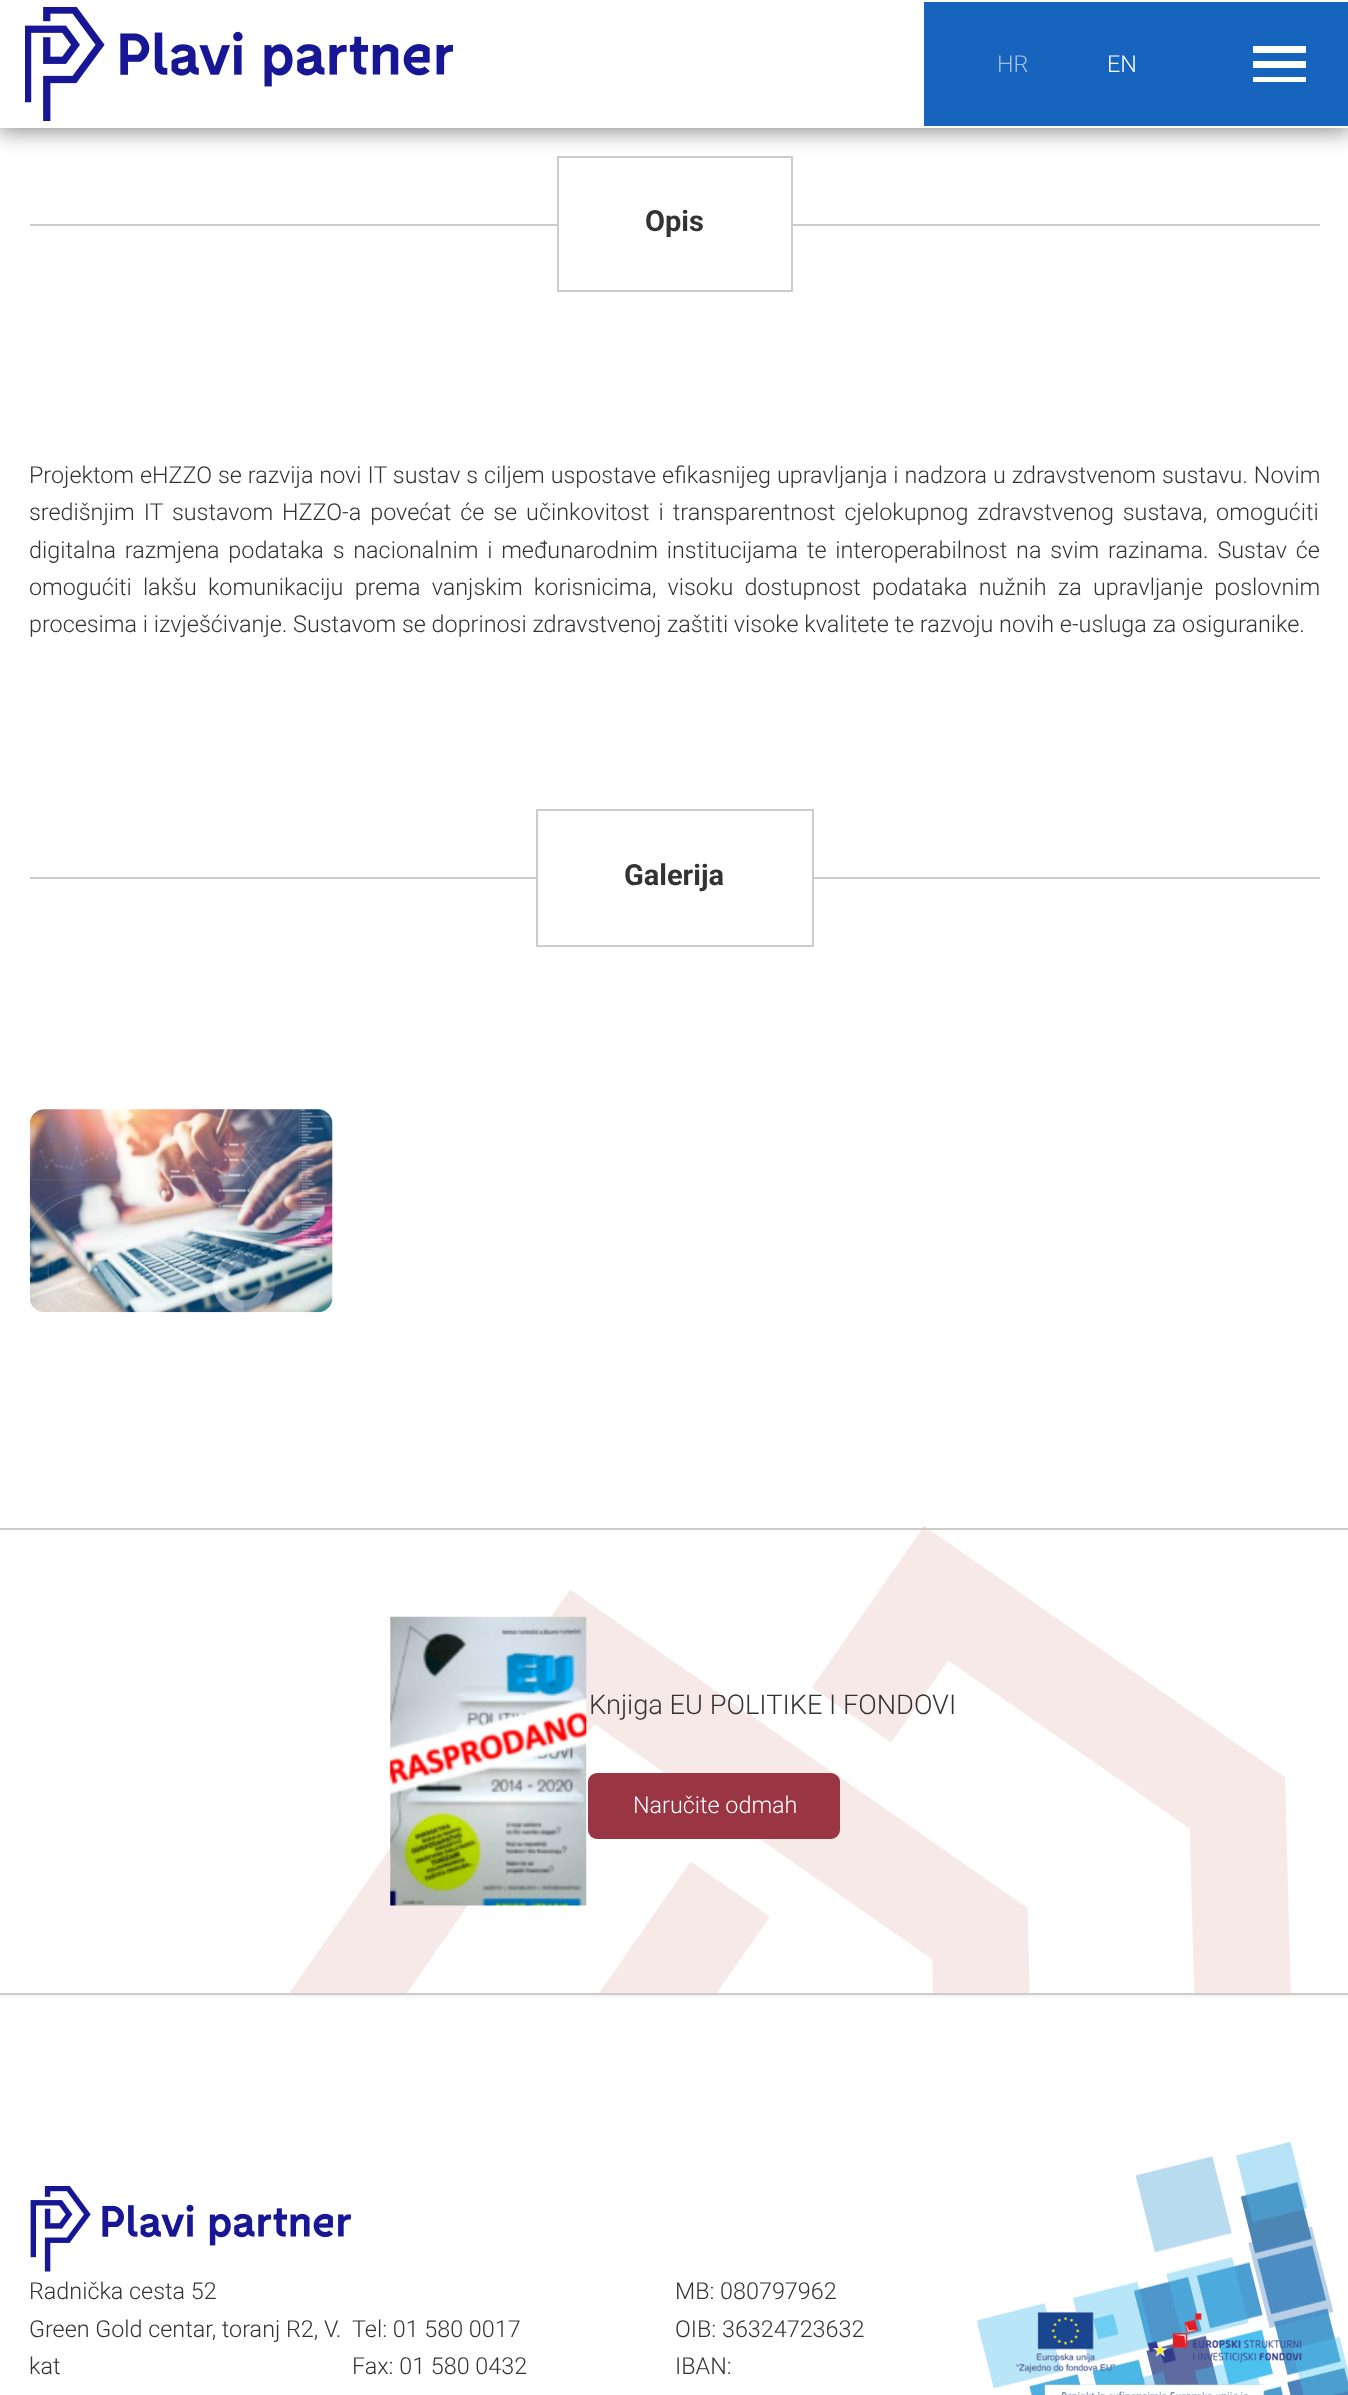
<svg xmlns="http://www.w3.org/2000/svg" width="1348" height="2395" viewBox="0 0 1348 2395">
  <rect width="100%" height="100%" fill="rgb(255,255,255)"/>
  <rect x="30" y="224" width="1290" height="2" fill="rgb(204,204,204)"/>
  <rect x="559" y="224" width="232" height="2" fill="rgb(255,255,255)"/>
  <rect x="558" y="157" width="234" height="134" fill="none" stroke="rgb(204,204,204)" stroke-width="2"/>
  <rect x="-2" y="-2" width="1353" height="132" fill="rgba(0,0,0,0.5)" filter="blur(11.5px)"/>
  <rect x="0" y="0" width="1348" height="128" fill="rgb(255,255,255)"/>
  <image x="25" y="7" width="428" height="114" href="pic1.png"/>
  <rect x="924" y="2" width="424" height="124" fill="rgb(23,100,190)"/>
  <rect x="1253" y="46" width="53" height="7" fill="rgb(255,255,255)"/>
  <rect x="1253" y="61" width="53" height="7" fill="rgb(255,255,255)"/>
  <rect x="1253" y="77" width="53" height="5" fill="rgb(255,255,255)"/>
  <text x="997" y="72" font-family="Roboto" font-size="23.35" font-weight="300" fill="rgb(162,193,229)">HR</text>
  <text x="1107" y="72" font-family="Roboto" font-size="23.35" font-weight="300" fill="rgb(255,255,255)">EN</text>
  <image x="923" y="1526" width="4" height="2" href="pic2.png"/>
  <text x="645" y="231" font-family="Roboto" font-size="29" font-weight="bold" fill="rgb(51,51,51)">Opis</text>
  <g font-family="Roboto" font-size="23.35" font-weight="300" fill="rgb(51,51,51)">
    <text>
      <tspan x="29" y="483" word-spacing="0.25">Projektom eHZZO se razvija novi IT sustav s ciljem uspostave efikasnijeg upravljanja i nadzora u zdravstvenom sustavu. Novim</tspan>
      <tspan x="29" y="520" word-spacing="3.25">središnjim IT sustavom HZZO-a povećat će se učinkovitost i transparentnost cjelokupnog zdravstvenog sustava, omogućiti</tspan>
      <tspan x="29" y="558" word-spacing="3.1">digitalna razmjena podataka s nacionalnim i međunarodnim institucijama te interoperabilnost na svim razinama. Sustav će</tspan>
      <tspan x="29" y="595" word-spacing="5.5">omogućiti lakšu komunikaciju prema vanjskim korisnicima, visoku dostupnost podataka nužnih za upravljanje poslovnim</tspan>
      <tspan x="29" y="632">procesima i izvješćivanje. Sustavom se doprinosi zdravstvenoj zaštiti visoke kvalitete te razvoju novih e-usluga za osiguranike.</tspan>
    </text>
  </g>
  <rect x="30" y="877" width="1290" height="2" fill="rgb(204,204,204)"/>
  <rect x="538" y="877" width="274" height="2" fill="rgb(255,255,255)"/>
  <rect x="537" y="810" width="276" height="136" fill="none" stroke="rgb(204,204,204)" stroke-width="2"/>
  <text x="624" y="885" font-family="Roboto" font-size="29" font-weight="bold" fill="rgb(51,51,51)">Galerija</text>
  <image x="29" y="1109" width="304" height="204" href="pic3.png"/>
  <image x="289" y="1527" width="1002" height="466" href="pic4.png"/>
  <rect x="0" y="1528" width="1348" height="2" fill="rgb(204,204,204)"/>
  <rect x="0" y="1993" width="1348" height="2" fill="rgb(204,204,204)"/>
  <image x="390" y="1616" width="197" height="290" href="pic5.png"/>
  <text x="589" y="1714" font-family="Roboto" font-size="27.25" font-weight="300" fill="rgb(51,51,51)">Knjiga EU POLITIKE I FONDOVI</text>
  <rect x="588" y="1773" width="252" height="66" rx="9" fill="rgb(154,54,68)"/>
  <text x="633" y="1813" font-family="Roboto" font-size="23.35" font-weight="300" fill="rgb(255,255,255)">Naručite odmah</text>
  <image x="976" y="2141" width="372" height="254" href="pic6.png"/>
  <rect x="0" y="1995" width="1348" height="2" fill="rgb(245,245,245)"/>
  <image x="30" y="2186" width="321" height="86" href="pic7.png"/>
  <g font-family="Roboto" font-size="23.35" font-weight="300" fill="rgb(51,51,51)">
    <text>
      <tspan x="29" y="2299">Radnička cesta 52</tspan>
      <tspan x="29" y="2337">Green Gold centar, toranj R2, V.</tspan>
      <tspan x="29" y="2374">kat</tspan>
    </text>
    <text>
      <tspan x="352" y="2337">Tel: 01 580 0017</tspan>
      <tspan x="352" y="2374">Fax: 01 580 0432</tspan>
    </text>
    <text>
      <tspan x="675" y="2299">MB: 080797962</tspan>
      <tspan x="675" y="2337">OIB: 36324723632</tspan>
      <tspan x="675" y="2374">IBAN:</tspan>
    </text>
  </g>
  <image x="1016" y="2311" width="286" height="84" href="pic8.png"/>
</svg>
